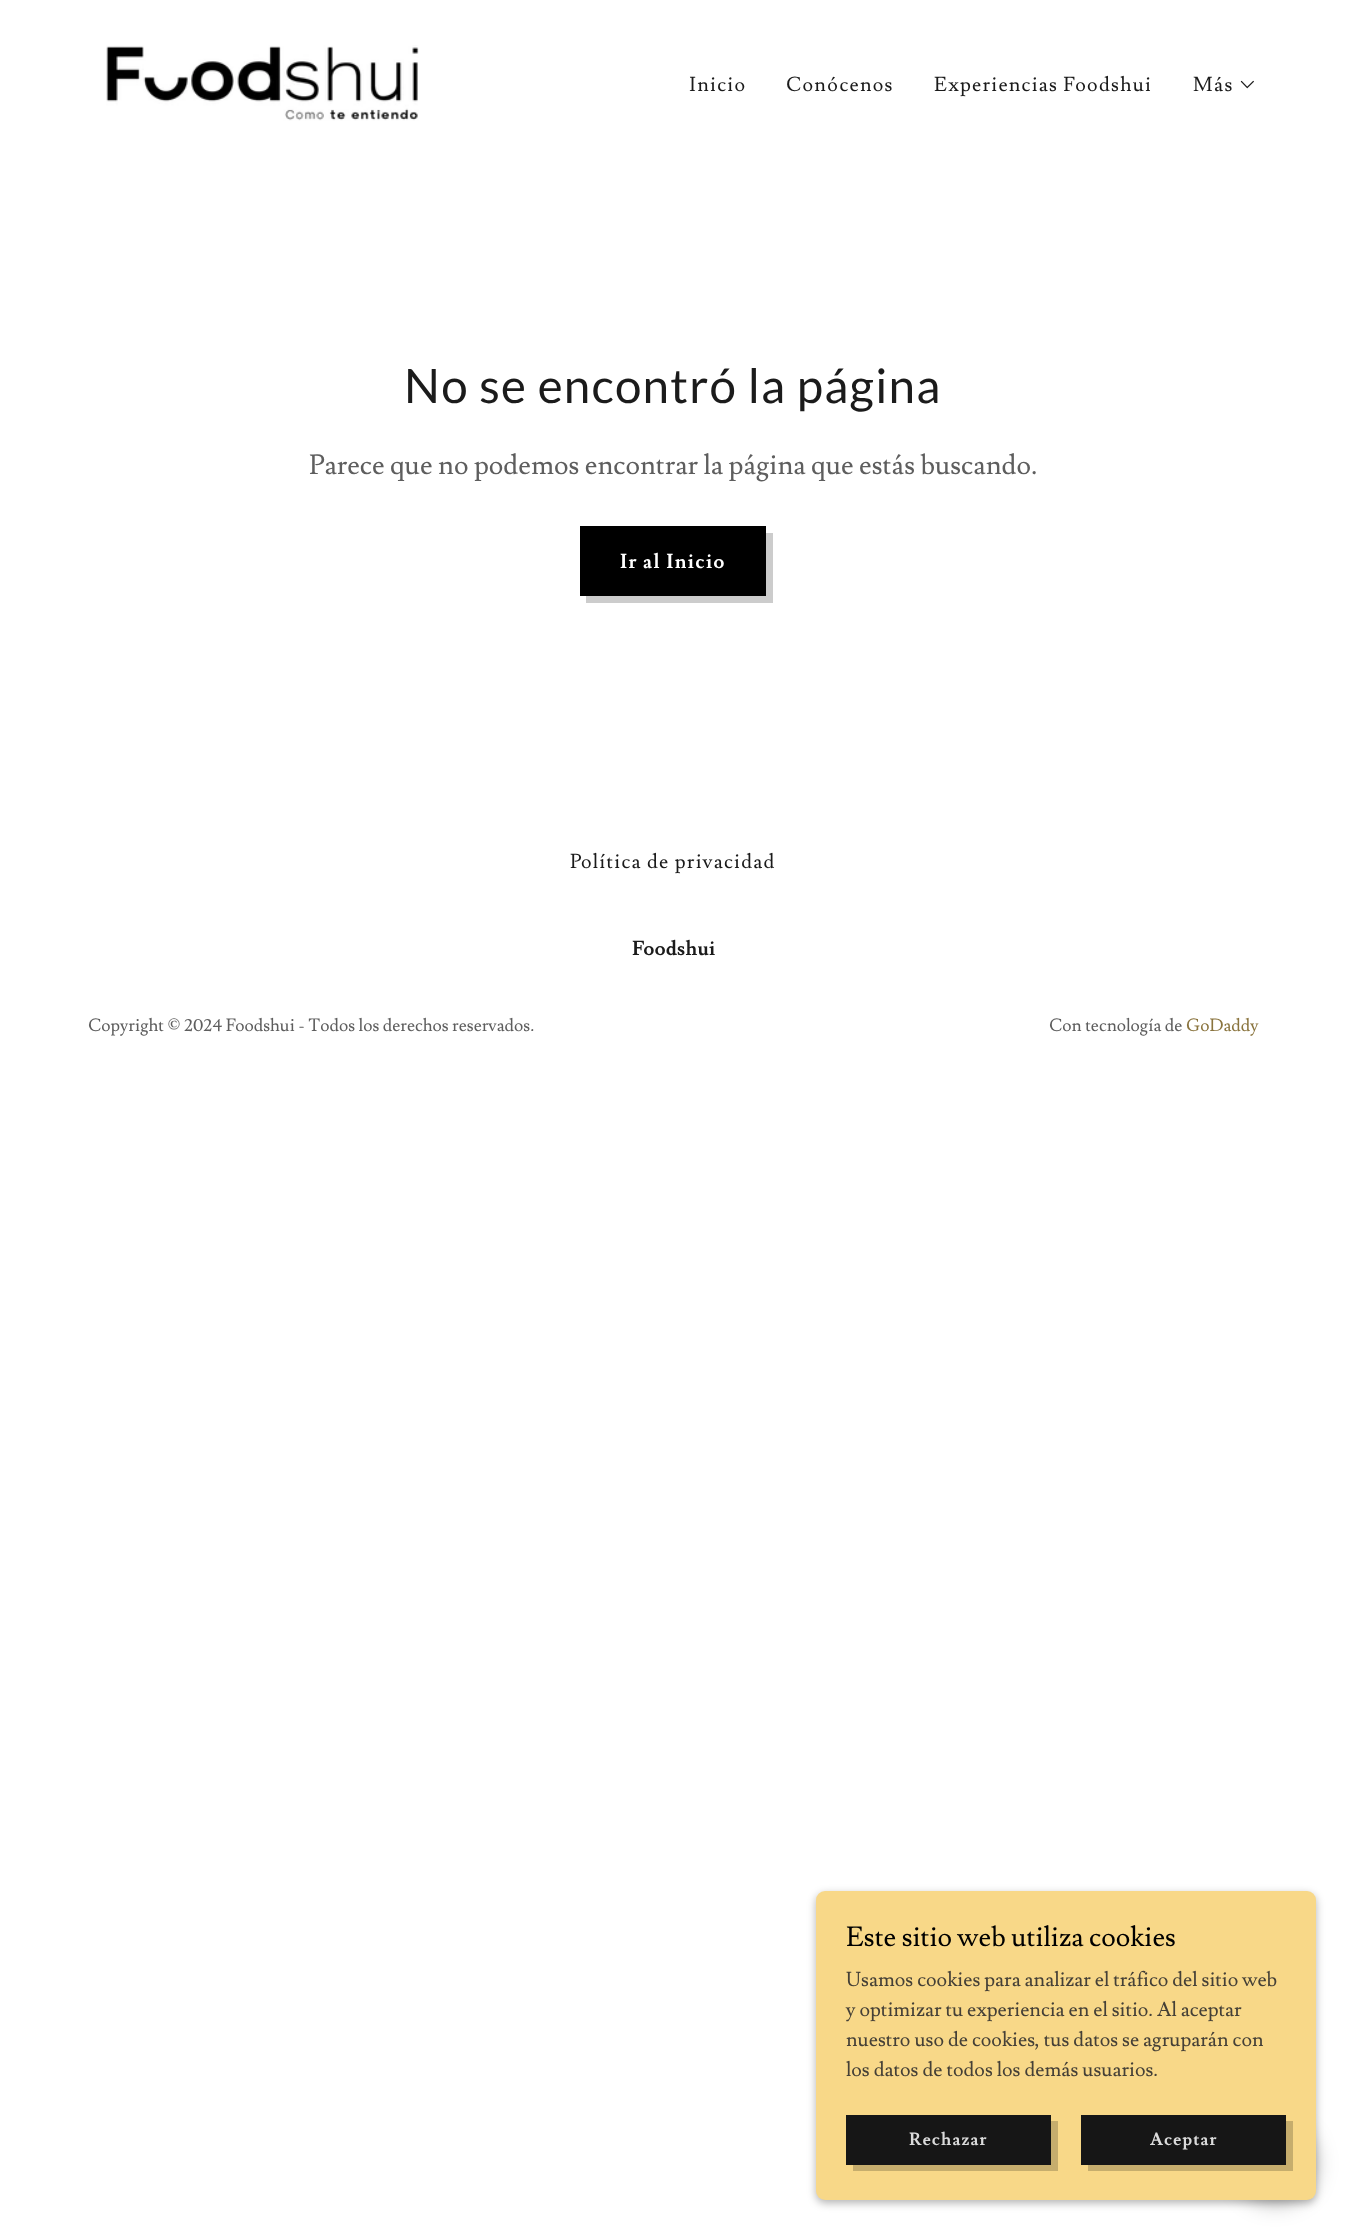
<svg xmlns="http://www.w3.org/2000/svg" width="1346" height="2230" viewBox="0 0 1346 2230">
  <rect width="100%" height="100%" fill="rgb(255,255,255)"/>
  <image x="106" y="45" width="313" height="76" href="pic1.png"/>
  <g font-family="Lusitana" font-size="20" letter-spacing="1.25" fill="rgb(27,27,27)">
    <text x="689" y="91">Inicio</text>
    <text x="786" y="91">Conócenos</text>
    <text x="934" y="91">Experiencias Foodshui</text>
    <text x="1193" y="91">Más</text>
  </g>
  <image x="1240" y="80" width="14" height="9" href="pic2.png"/>
  <text x="404" y="403" font-family="Lato" font-size="47.5" letter-spacing="1.25" fill="rgb(27,27,27)">No se encontró la página</text>
  <text x="309" y="474" font-family="Lusitana" font-size="27.5" fill="rgb(94,94,94)">Parece que no podemos encontrar la página que estás buscando.</text>
  <rect x="580" y="526" width="186" height="70" fill="rgb(0,0,0)"/>
  <path d="M586 596V603H773V533H766V596Z" fill="rgb(204,204,204)"/>
  <text x="620" y="568" font-family="Lusitana" font-size="20" font-weight="bold" letter-spacing="1.25" fill="rgb(255,255,255)">Ir al Inicio</text>
  <text x="570" y="868" font-family="Lusitana" font-size="20" letter-spacing="1.25" fill="rgb(27,27,27)">Política de privacidad</text>
  <text x="632" y="955" font-family="Lusitana" font-size="20" font-weight="bold" fill="rgb(27,27,27)">Foodshui</text>
  <g font-family="Lusitana" font-size="17.5" fill="rgb(94,94,94)">
    <text x="88" y="1031">Copyright © 2024 Foodshui - Todos los derechos reservados.</text>
    <text x="1049" y="1031">Con tecnología de</text>
  </g>
  <text x="1186" y="1031" font-family="Lusitana" font-size="17.5" fill="rgb(138,116,62)">GoDaddy</text>
  <rect x="816" y="1894" width="500" height="309" rx="9" fill="rgba(0,0,0,0.3)" filter="blur(4px)"/>
  <rect x="1235" y="2123" width="81" height="81" rx="40.5" fill="rgba(0,0,0,0.25)" filter="blur(11px)"/>
  <rect x="816" y="1891" width="500" height="309" rx="9" fill="rgb(248,216,136)"/>
  <text x="846" y="1946" font-family="Lusitana" font-size="27.5" fill="rgb(0,0,0)">Este sitio web utiliza cookies</text>
  <g font-family="Lusitana" font-size="20" fill="rgb(69,64,55)">
    <text>
      <tspan x="846" y="1986">Usamos cookies para analizar el tráfico del sitio web</tspan>
      <tspan x="846" y="2016">y optimizar tu experiencia en el sitio. Al aceptar</tspan>
      <tspan x="846" y="2046">nuestro uso de cookies, tus datos se agruparán con</tspan>
      <tspan x="846" y="2076">los datos de todos los demás usuarios.</tspan>
    </text>
  </g>
  <rect x="846" y="2115" width="205" height="50" fill="rgb(22,22,22)"/>
  <path d="M853 2165V2171H1058V2121H1051V2165Z" fill="rgb(198,173,109)"/>
  <text x="909" y="2145" font-family="Lusitana" font-size="17.5" font-weight="bold" letter-spacing="1" fill="rgb(219,219,219)">Rechazar</text>
  <rect x="1081" y="2115" width="205" height="50" fill="rgb(22,22,22)"/>
  <path d="M1088 2165V2171H1293V2121H1286V2165Z" fill="rgb(198,173,109)"/>
  <text x="1150" y="2145" font-family="Lusitana" font-size="17.5" font-weight="bold" letter-spacing="1" fill="rgb(219,219,219)">Aceptar</text>
</svg>
